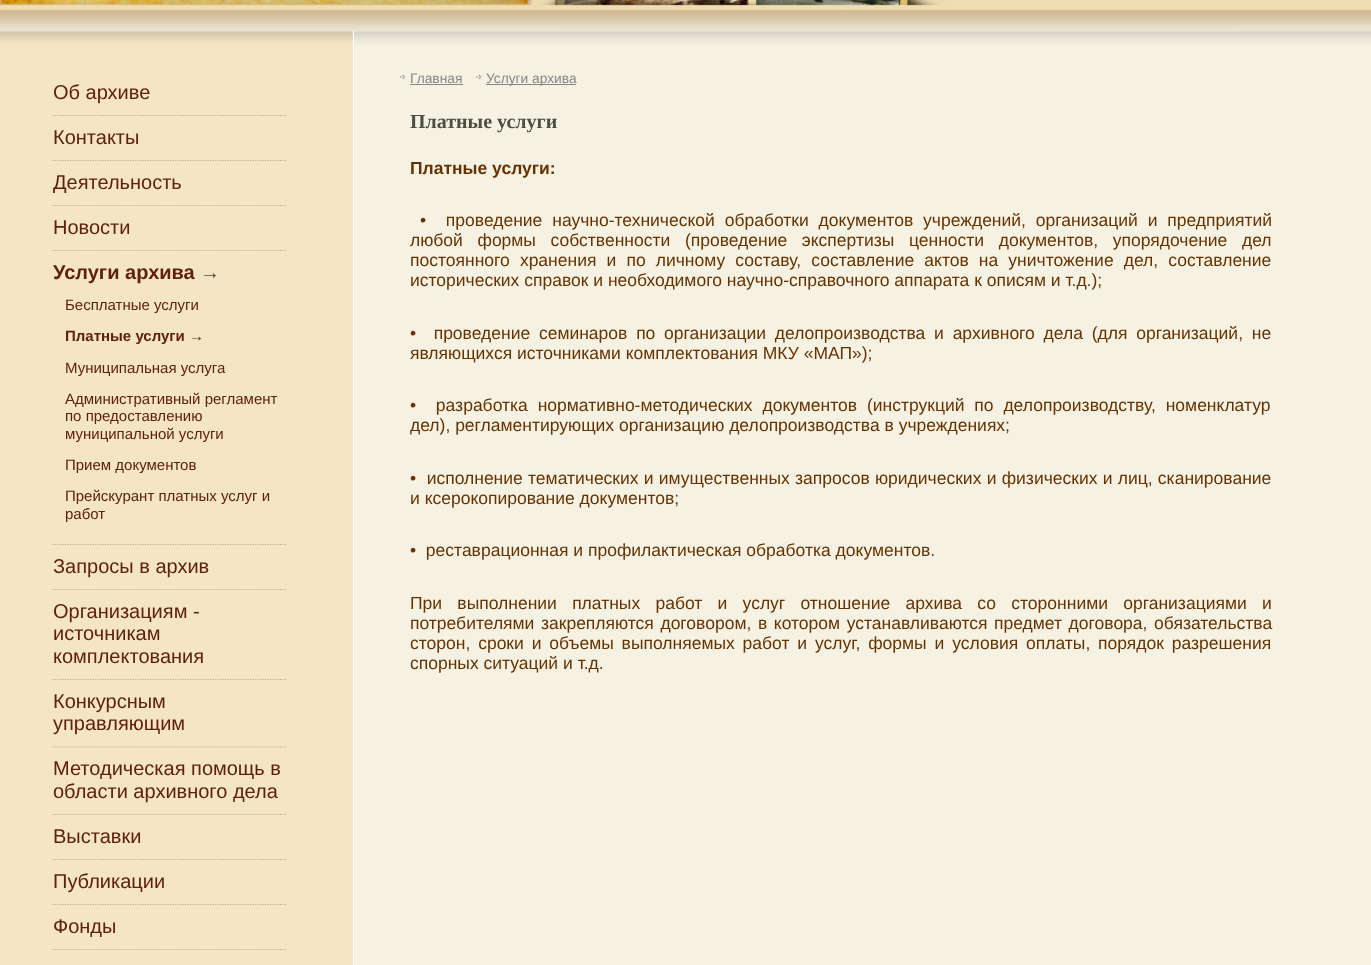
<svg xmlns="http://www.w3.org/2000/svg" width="1371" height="965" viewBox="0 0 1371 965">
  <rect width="100%" height="100%" fill="rgb(245,242,227)"/>
  <image x="0" y="0" width="1371" height="32" href="pic1.png"/>
  <rect x="353" y="31" width="1" height="934" fill="rgb(255,255,255)"/>
  <rect x="0" y="31" width="353" height="934" fill="rgb(244,229,196)"/>
  <image x="0" y="31" width="353" height="12" href="pic4.png"/>
  <image x="354" y="31" width="1017" height="15" href="pic5.png"/>
  <image x="0" y="9" width="555" height="23" href="pic2.png"/>
  <image x="555" y="0" width="682" height="32" href="pic3.png"/>
  <path d="M52.5 115.5H286" fill="none" stroke="rgb(189,175,148)" stroke-width="1.2" stroke-dasharray="1.25 1.25"/>
  <text x="53" y="99" font-family="Liberation Sans" font-size="20" fill="rgb(95,32,14)">Об архиве</text>
  <path d="M52.5 160.5H286" fill="none" stroke="rgb(189,175,148)" stroke-width="1.2" stroke-dasharray="1.25 1.25"/>
  <text x="53" y="144" font-family="Liberation Sans" font-size="20" fill="rgb(95,32,14)">Контакты</text>
  <path d="M52.5 205.5H286" fill="none" stroke="rgb(189,175,148)" stroke-width="1.2" stroke-dasharray="1.25 1.25"/>
  <text x="53" y="189" font-family="Liberation Sans" font-size="20" fill="rgb(95,32,14)">Деятельность</text>
  <path d="M52.5 250.5H286" fill="none" stroke="rgb(189,175,148)" stroke-width="1.2" stroke-dasharray="1.25 1.25"/>
  <text x="53" y="234" font-family="Liberation Sans" font-size="20" fill="rgb(95,32,14)">Новости</text>
  <path d="M52.5 544.5H286" fill="none" stroke="rgb(189,175,148)" stroke-width="1.2" stroke-dasharray="1.25 1.25"/>
  <text x="53" y="279" font-family="Liberation Sans" font-size="20" font-weight="bold" fill="rgb(95,32,14)">Услуги архива</text>
  <text x="200" y="279" font-family="Liberation Sans" font-size="20" font-weight="bold" fill="rgb(76,78,67)">→</text>
  <text x="65" y="310" font-family="Liberation Sans" font-size="15" fill="rgb(95,32,14)">Бесплатные услуги</text>
  <text x="65" y="341" font-family="Liberation Sans" font-size="15" font-weight="bold" fill="rgb(95,32,14)">Платные услуги →</text>
  <g font-family="Liberation Sans" font-size="15" fill="rgb(95,32,14)">
    <text x="65" y="373">Муниципальная услуга</text>
    <text>
      <tspan x="65" y="404">Административный регламент</tspan>
      <tspan x="65" y="421">по предоставлению</tspan>
      <tspan x="65" y="439">муниципальной услуги</tspan>
    </text>
    <text x="65" y="470">Прием документов</text>
    <text>
      <tspan x="65" y="501">Прейскурант платных услуг и</tspan>
      <tspan x="65" y="519">работ</tspan>
    </text>
  </g>
  <path d="M52.5 589.5H286" fill="none" stroke="rgb(189,175,148)" stroke-width="1.2" stroke-dasharray="1.25 1.25"/>
  <text x="53" y="573" font-family="Liberation Sans" font-size="20" fill="rgb(95,32,14)">Запросы в архив</text>
  <path d="M52.5 679.5H286" fill="none" stroke="rgb(189,175,148)" stroke-width="1.2" stroke-dasharray="1.25 1.25"/>
  <g font-family="Liberation Sans" font-size="20" fill="rgb(95,32,14)">
    <text>
      <tspan x="53" y="618">Организациям -</tspan>
      <tspan x="53" y="640">источникам</tspan>
      <tspan x="53" y="663">комплектования</tspan>
    </text>
  </g>
  <path d="M52.5 747H286" fill="none" stroke="rgb(189,175,148)" stroke-width="1.2" stroke-dasharray="1.25 1.25"/>
  <g font-family="Liberation Sans" font-size="20" fill="rgb(95,32,14)">
    <text>
      <tspan x="53" y="708">Конкурсным</tspan>
      <tspan x="53" y="730">управляющим</tspan>
    </text>
  </g>
  <path d="M52.5 814.5H286" fill="none" stroke="rgb(189,175,148)" stroke-width="1.2" stroke-dasharray="1.25 1.25"/>
  <g font-family="Liberation Sans" font-size="20" fill="rgb(95,32,14)">
    <text>
      <tspan x="53" y="775">Методическая помощь в</tspan>
      <tspan x="53" y="798">области архивного дела</tspan>
    </text>
  </g>
  <path d="M52.5 859.5H286" fill="none" stroke="rgb(189,175,148)" stroke-width="1.2" stroke-dasharray="1.25 1.25"/>
  <text x="53" y="843" font-family="Liberation Sans" font-size="20" fill="rgb(95,32,14)">Выставки</text>
  <path d="M52.5 904.5H286" fill="none" stroke="rgb(189,175,148)" stroke-width="1.2" stroke-dasharray="1.25 1.25"/>
  <text x="53" y="888" font-family="Liberation Sans" font-size="20" fill="rgb(95,32,14)">Публикации</text>
  <path d="M52.5 949.5H286" fill="none" stroke="rgb(189,175,148)" stroke-width="1.2" stroke-dasharray="1.25 1.25"/>
  <text x="53" y="933" font-family="Liberation Sans" font-size="20" fill="rgb(95,32,14)">Фонды</text>
  <image x="400" y="75" width="5" height="4" href="pic6.png"/>
  <text x="410" y="83" font-family="Liberation Sans" font-size="13.75" fill="rgb(135,135,135)">Главная</text>
  <rect x="410" y="84" width="53" height="1" fill="rgb(135,135,135)"/>
  <image x="476" y="75" width="6" height="4" href="pic7.png"/>
  <rect x="486" y="84" width="90" height="1" fill="rgb(135,135,135)"/>
  <text x="486" y="83" font-family="Liberation Sans" font-size="13.75" fill="rgb(135,135,135)">Услуги архива</text>
  <text x="410" y="128" font-family="Liberation Serif" font-size="20" font-weight="bold" fill="rgb(76,78,67)">Платные услуги</text>
  <text x="410" y="174" font-family="Liberation Sans" font-size="17.5" font-weight="bold" fill="rgb(102,51,0)">Платные услуги:</text>
  <g font-family="Liberation Sans" font-size="17.5" fill="rgb(102,51,0)">
    <text x="420" y="226" word-spacing="5" xml:space="preserve">•  проведение научно-технической обработки документов учреждений, организаций и предприятий</text>
    <text>
      <tspan x="410" y="246" word-spacing="9.75">любой формы собственности (проведение экспертизы ценности документов, упорядочение дел</tspan>
      <tspan x="410" y="266" word-spacing="5.25">постоянного хранения и по личному составу, составление актов на уничтожение дел, составление</tspan>
      <tspan x="410" y="286">исторических справок и необходимого научно-справочного аппарата к описям и т.д.);</tspan>
    </text>
    <text xml:space="preserve"><tspan x="410" y="339" word-spacing="3.9">•  проведение семинаров по организации делопроизводства и архивного дела (для организаций, не</tspan><tspan x="410" y="359">являющихся источниками комплектования МКУ «МАП»);</tspan></text>
    <text xml:space="preserve"><tspan x="410" y="411" word-spacing="5">•  разработка нормативно-методических документов (инструкций по делопроизводству, номенклатур</tspan><tspan x="410" y="431">дел), регламентирующих организацию делопроизводства в учреждениях;</tspan></text>
    <text xml:space="preserve"><tspan x="410" y="484" word-spacing="0.4">•  исполнение тематических и имущественных запросов юридических и физических и лиц, сканирование</tspan><tspan x="410" y="504">и ксерокопирование документов;</tspan></text>
    <text x="410" y="556" xml:space="preserve">•  реставрационная и профилактическая обработка документов.</text>
    <text>
      <tspan x="410" y="609" word-spacing="10.4">При выполнении платных работ и услуг отношение архива со сторонними организациями и</tspan>
      <tspan x="410" y="629" word-spacing="1.75">потребителями закрепляются договором, в котором устанавливаются предмет договора, обязательства</tspan>
      <tspan x="410" y="649" word-spacing="3">сторон, сроки и объемы выполняемых работ и услуг, формы и условия оплаты, порядок разрешения</tspan>
      <tspan x="410" y="669">спорных ситуаций и т.д.</tspan>
    </text>
  </g>
</svg>
